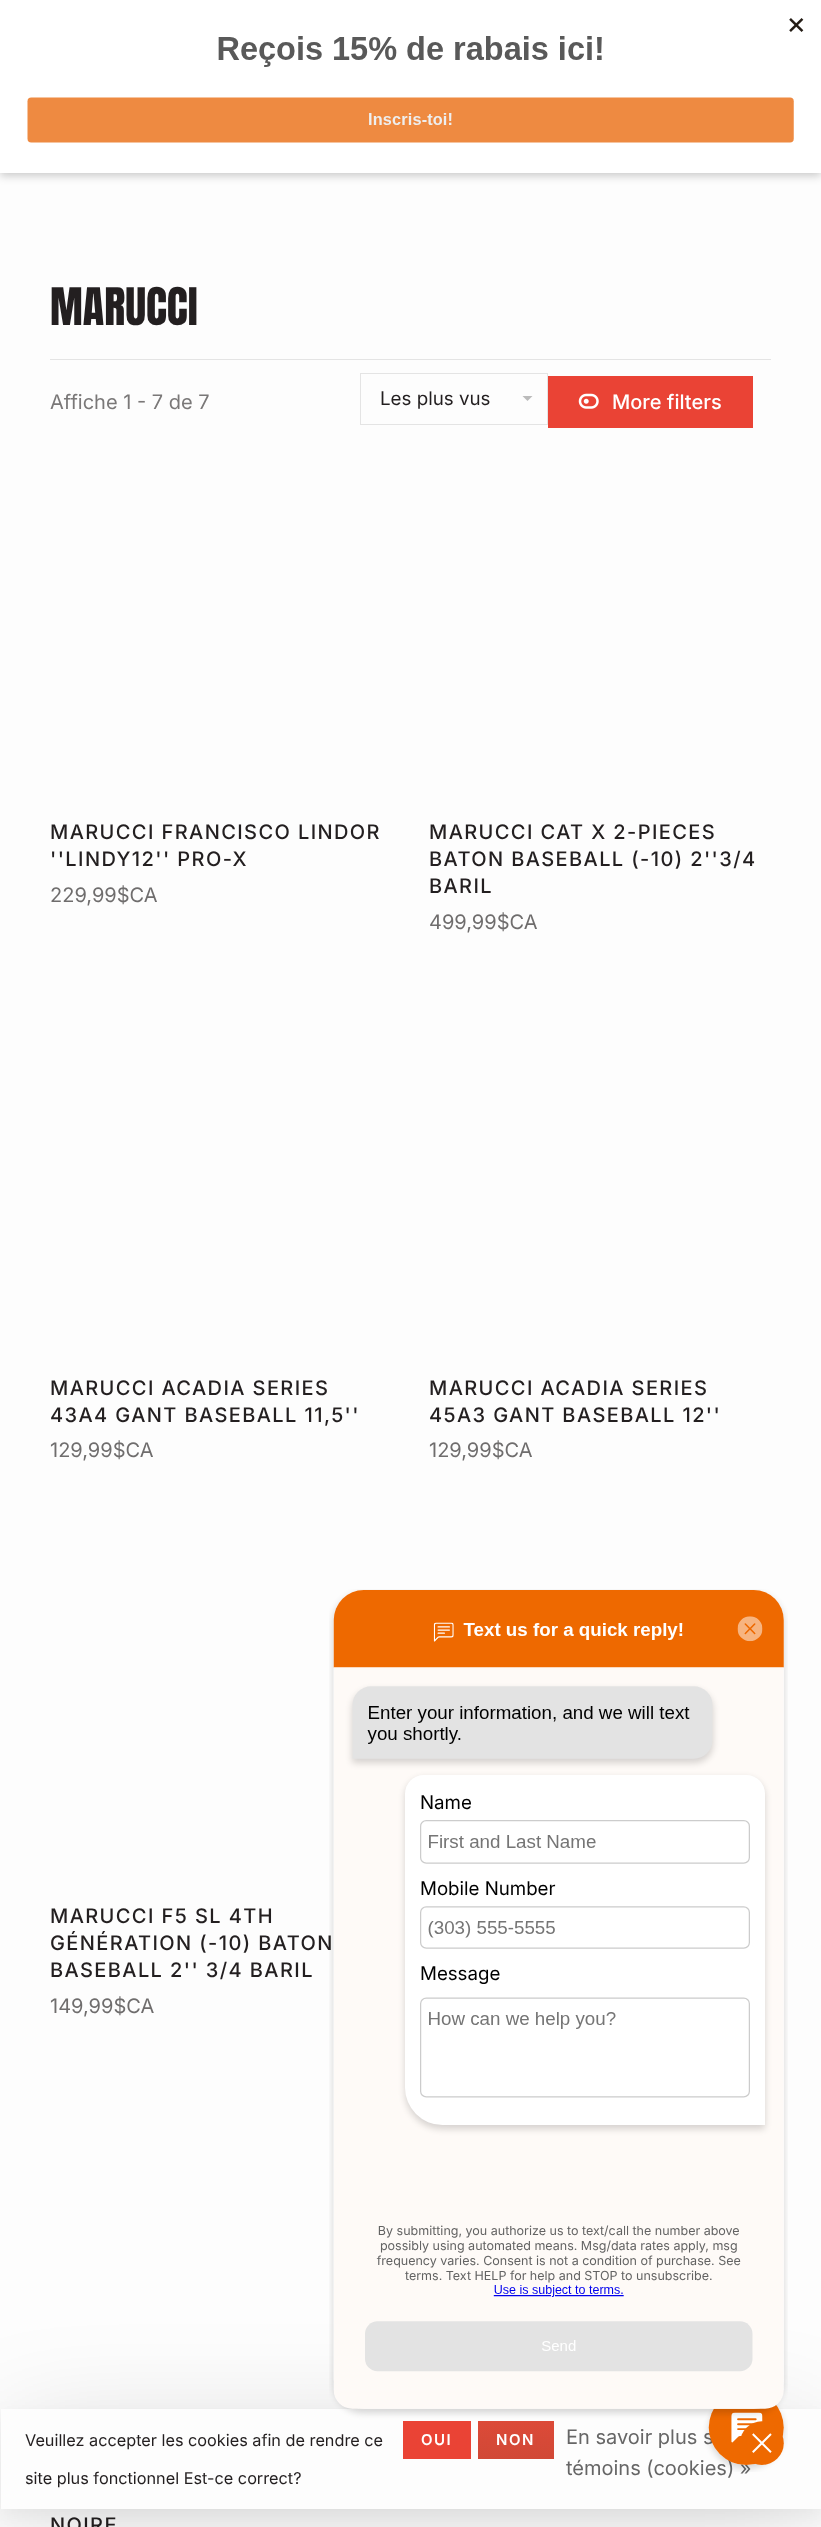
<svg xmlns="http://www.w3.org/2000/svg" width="821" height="2527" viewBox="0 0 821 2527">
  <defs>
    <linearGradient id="g1" gradientUnits="userSpaceOnUse" x1="515" y1="2421" x2="515" y2="2459"><stop offset="0" stop-color="rgb(220,74,56)"/><stop offset="1" stop-color="rgb(209,72,54)"/></linearGradient>
  </defs>
  <rect width="100%" height="100%" fill="rgb(253,253,253)"/>
  <rect x="0" y="4" width="821" height="172" fill="rgba(0,0,0,0.2)" filter="blur(4px)"/>
  <rect x="0" y="0" width="821" height="173" fill="rgb(255,255,255)"/>
  <image x="27" y="18" width="777" height="125" href="pic1.png"/>
  <text x="50" y="325" font-family="Anton" font-size="44" fill="rgb(35,31,32)">MARUCCI</text>
  <rect x="50" y="359" width="721" height="1" fill="rgb(228,228,228)"/>
  <text x="50" y="409" font-family="Inter" font-size="20" fill="rgb(122,120,120)">Affiche 1 - 7 de 7</text>
  <rect x="360.5" y="373.5" width="187" height="51" fill="none" stroke="rgb(228,228,228)"/>
  <text x="380" y="405" font-family="Inter" font-size="18.75" fill="rgb(35,31,32)">Les plus vus</text>
  <path d="M522.5 396H532.5L527.5 401Z" fill="rgb(187,187,187)"/>
  <rect x="548" y="376" width="205" height="52" fill="rgb(234,67,53)"/>
  <image x="578" y="393" width="21" height="16" href="pic2.png"/>
  <text x="612" y="409" font-family="Inter" font-size="20" font-weight="500" fill="rgb(255,255,255)">More filters</text>
  <g font-family="Inter" font-size="20" font-weight="500" letter-spacing="1.4" fill="rgb(35,31,32)">
    <text>
      <tspan x="50" y="839">MARUCCI FRANCISCO LINDOR</tspan>
      <tspan x="50" y="866">''LINDY12'' PRO-X</tspan>
    </text>
  </g>
  <text x="50" y="902" font-family="Inter" font-size="20" fill="rgb(111,109,109)">229,99$CA</text>
  <g font-family="Inter" font-size="20" font-weight="500" letter-spacing="1.4" fill="rgb(35,31,32)">
    <text>
      <tspan x="429" y="839">MARUCCI CAT X 2-PIECES</tspan>
      <tspan x="429" y="866">BATON BASEBALL (-10) 2''3/4</tspan>
      <tspan x="429" y="893">BARIL</tspan>
    </text>
  </g>
  <text x="429" y="929" font-family="Inter" font-size="20" fill="rgb(111,109,109)">499,99$CA</text>
  <g font-family="Inter" font-size="20" font-weight="500" letter-spacing="1.4" fill="rgb(35,31,32)">
    <text>
      <tspan x="50" y="1395">MARUCCI ACADIA SERIES</tspan>
      <tspan x="50" y="1422">43A4 GANT BASEBALL 11,5''</tspan>
    </text>
  </g>
  <text x="50" y="1457" font-family="Inter" font-size="20" fill="rgb(111,109,109)">129,99$CA</text>
  <g font-family="Inter" font-size="20" font-weight="500" letter-spacing="1.4" fill="rgb(35,31,32)">
    <text>
      <tspan x="429" y="1395">MARUCCI ACADIA SERIES</tspan>
      <tspan x="429" y="1422">45A3 GANT BASEBALL 12''</tspan>
    </text>
  </g>
  <text x="429" y="1457" font-family="Inter" font-size="20" fill="rgb(111,109,109)">129,99$CA</text>
  <g font-family="Inter" font-size="20" font-weight="500" letter-spacing="1.4" fill="rgb(35,31,32)">
    <text>
      <tspan x="50" y="1923">MARUCCI F5 SL 4TH</tspan>
      <tspan x="50" y="1950">GÉNÉRATION (-10) BATON</tspan>
      <tspan x="50" y="1977">BASEBALL 2'' 3/4 BARIL</tspan>
    </text>
  </g>
  <text x="50" y="2013" font-family="Inter" font-size="20" fill="rgb(111,109,109)">149,99$CA</text>
  <text x="50" y="2532" font-family="Inter" font-size="20" font-weight="500" letter-spacing="1.4" fill="rgb(35,31,32)">NOIRE</text>
  <rect x="1" y="2416" width="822" height="100" fill="rgba(0,0,0,0.05)" filter="blur(9.5px)"/>
  <rect x="9" y="2434" width="806" height="85" fill="rgba(0,0,0,0.15)" filter="blur(54px)"/>
  <rect x="1" y="2409" width="820" height="100" fill="rgb(253,253,253)"/>
  <text x="25" y="2446" font-family="Inter" font-size="16.25" fill="rgb(35,31,32)">Veuillez accepter les cookies afin de rendre ce</text>
  <rect x="403" y="2421" width="68" height="38" fill="rgb(234,67,53)"/>
  <text x="421" y="2445" font-family="Inter" font-size="15" font-weight="600" letter-spacing="1.5" fill="rgb(255,255,255)">OUI</text>
  <rect x="478" y="2421" width="76" height="38" fill="url(#g1)"/>
  <text x="496" y="2445" font-family="Inter" font-size="15" font-weight="600" letter-spacing="1.5" fill="rgb(255,255,255)">NON</text>
  <g font-family="Inter" font-size="20" fill="rgb(102,102,102)">
    <text>
      <tspan x="566" y="2444">En savoir plus s</tspan>
      <tspan x="566" y="2475">témoins (cookies) »</tspan>
    </text>
  </g>
  <text x="25" y="2484" font-family="Inter" font-size="16.25" fill="rgb(35,31,32)">site plus fonctionnel Est-ce correct?</text>
  <image x="329" y="1589" width="459" height="883" href="pic3.png"/>
</svg>
